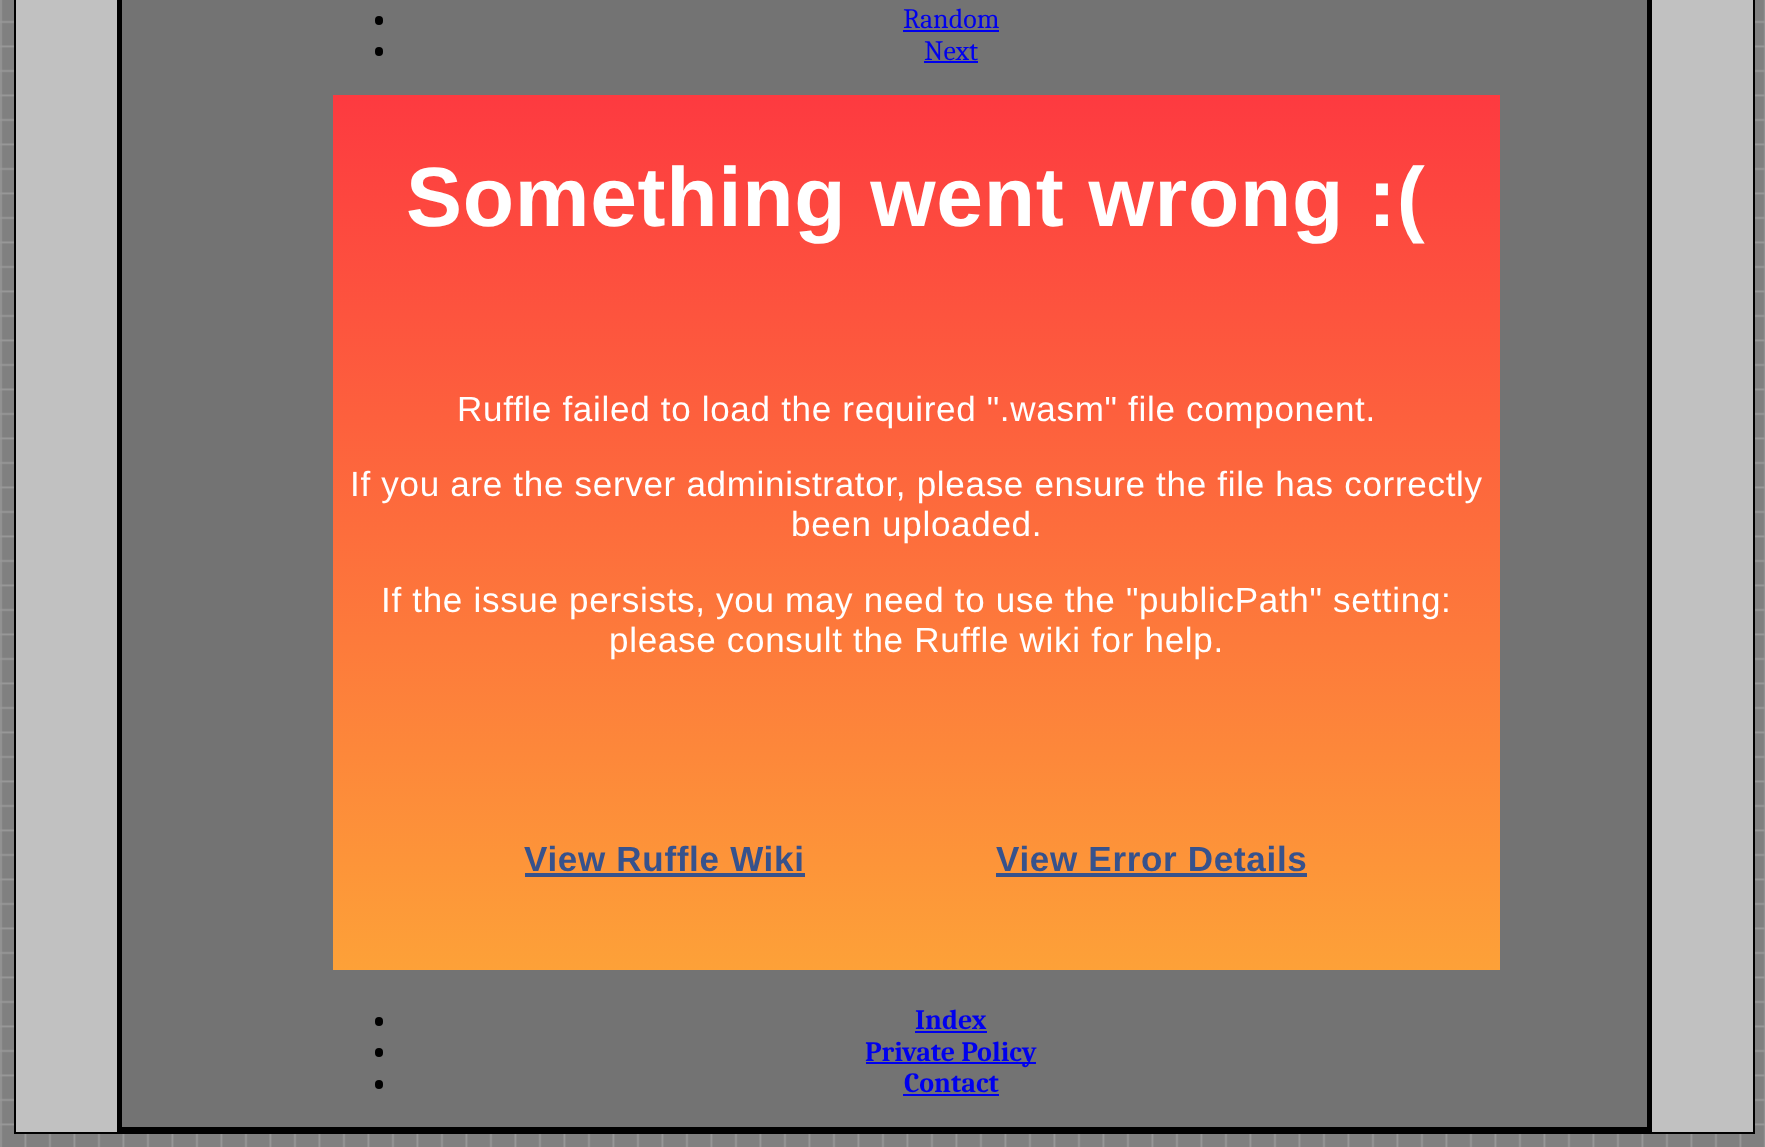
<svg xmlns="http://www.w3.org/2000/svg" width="1765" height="1147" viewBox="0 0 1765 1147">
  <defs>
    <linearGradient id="g1" gradientUnits="userSpaceOnUse" x1="916" y1="94" x2="916" y2="970"><stop offset="0" stop-color="rgb(253,58,64)"/><stop offset="1" stop-color="rgb(253,161,56)"/></linearGradient>
  </defs>
  <rect width="100%" height="100%" fill="rgb(255,255,255)"/>
  <image x="0" y="0" width="1765" height="1147" href="pic1.png"/>
  <rect x="15" y="-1" width="1739" height="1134" fill="rgb(193,193,193)" stroke="rgb(0,0,0)" stroke-width="2"/>
  <rect x="119.5" y="-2.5" width="1530" height="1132" fill="rgb(115,115,115)" stroke="rgb(0,0,0)" stroke-width="5"/>
  <rect x="375" y="16" width="8" height="9" rx="4" fill="rgb(0,0,0)"/>
  <text x="903" y="28" font-family="Caladea" font-size="28" fill="rgb(0,0,238)">Random</text>
  <rect x="903" y="30" width="96" height="2" fill="rgb(0,0,238)"/>
  <rect x="375" y="47" width="8" height="9" rx="4" fill="rgb(0,0,0)"/>
  <text x="924" y="60" font-family="Caladea" font-size="28" fill="rgb(0,0,238)">Next</text>
  <rect x="924" y="61" width="54" height="2" fill="rgb(0,0,238)"/>
  <rect x="333" y="95" width="1167" height="875" fill="url(#g1)"/>
  <text x="406" y="226" font-family="Liberation Sans" font-size="84" font-weight="bold" letter-spacing="0.7" fill="rgb(255,255,255)">Something went wrong :(</text>
  <g font-family="Liberation Sans" font-size="35" letter-spacing="0.7" fill="rgb(255,255,255)">
    <text x="457" y="421">Ruffle failed to load the required ".wasm" file component.</text>
    <text x="350" y="496">If you are the server administrator, please ensure the file has correctly</text>
    <text x="791" y="536">been uploaded.</text>
    <text x="381" y="612">If the issue persists, you may need to use the "publicPath" setting:</text>
    <text x="609" y="652">please consult the Ruffle wiki for help.</text>
  </g>
  <text x="524" y="871" font-family="Liberation Sans" font-size="35" font-weight="bold" letter-spacing="0.7" fill="rgb(55,82,140)">View Ruffle Wiki</text>
  <rect x="525" y="873" width="280" height="4" fill="rgb(55,82,140)"/>
  <text x="996" y="871" font-family="Liberation Sans" font-size="35" font-weight="bold" letter-spacing="0.7" fill="rgb(55,82,140)">View Error Details</text>
  <rect x="996" y="873" width="311" height="4" fill="rgb(55,82,140)"/>
  <rect x="375" y="1017" width="8" height="9" rx="4" fill="rgb(0,0,0)"/>
  <text x="915" y="1029" font-family="Caladea" font-size="28" font-weight="bold" fill="rgb(0,0,238)">Index</text>
  <rect x="915" y="1031" width="72" height="2" fill="rgb(0,0,238)"/>
  <rect x="375" y="1048" width="8" height="9" rx="4" fill="rgb(0,0,0)"/>
  <rect x="866" y="1062" width="170" height="2" fill="rgb(0,0,238)"/>
  <text x="865" y="1061" font-family="Caladea" font-size="28" font-weight="bold" fill="rgb(0,0,238)">Private Policy</text>
  <rect x="375" y="1080" width="8" height="9" rx="4" fill="rgb(0,0,0)"/>
  <text x="904" y="1092" font-family="Caladea" font-size="28" font-weight="bold" fill="rgb(0,0,238)">Contact</text>
  <rect x="903" y="1094" width="96" height="2" fill="rgb(0,0,238)"/>
</svg>
